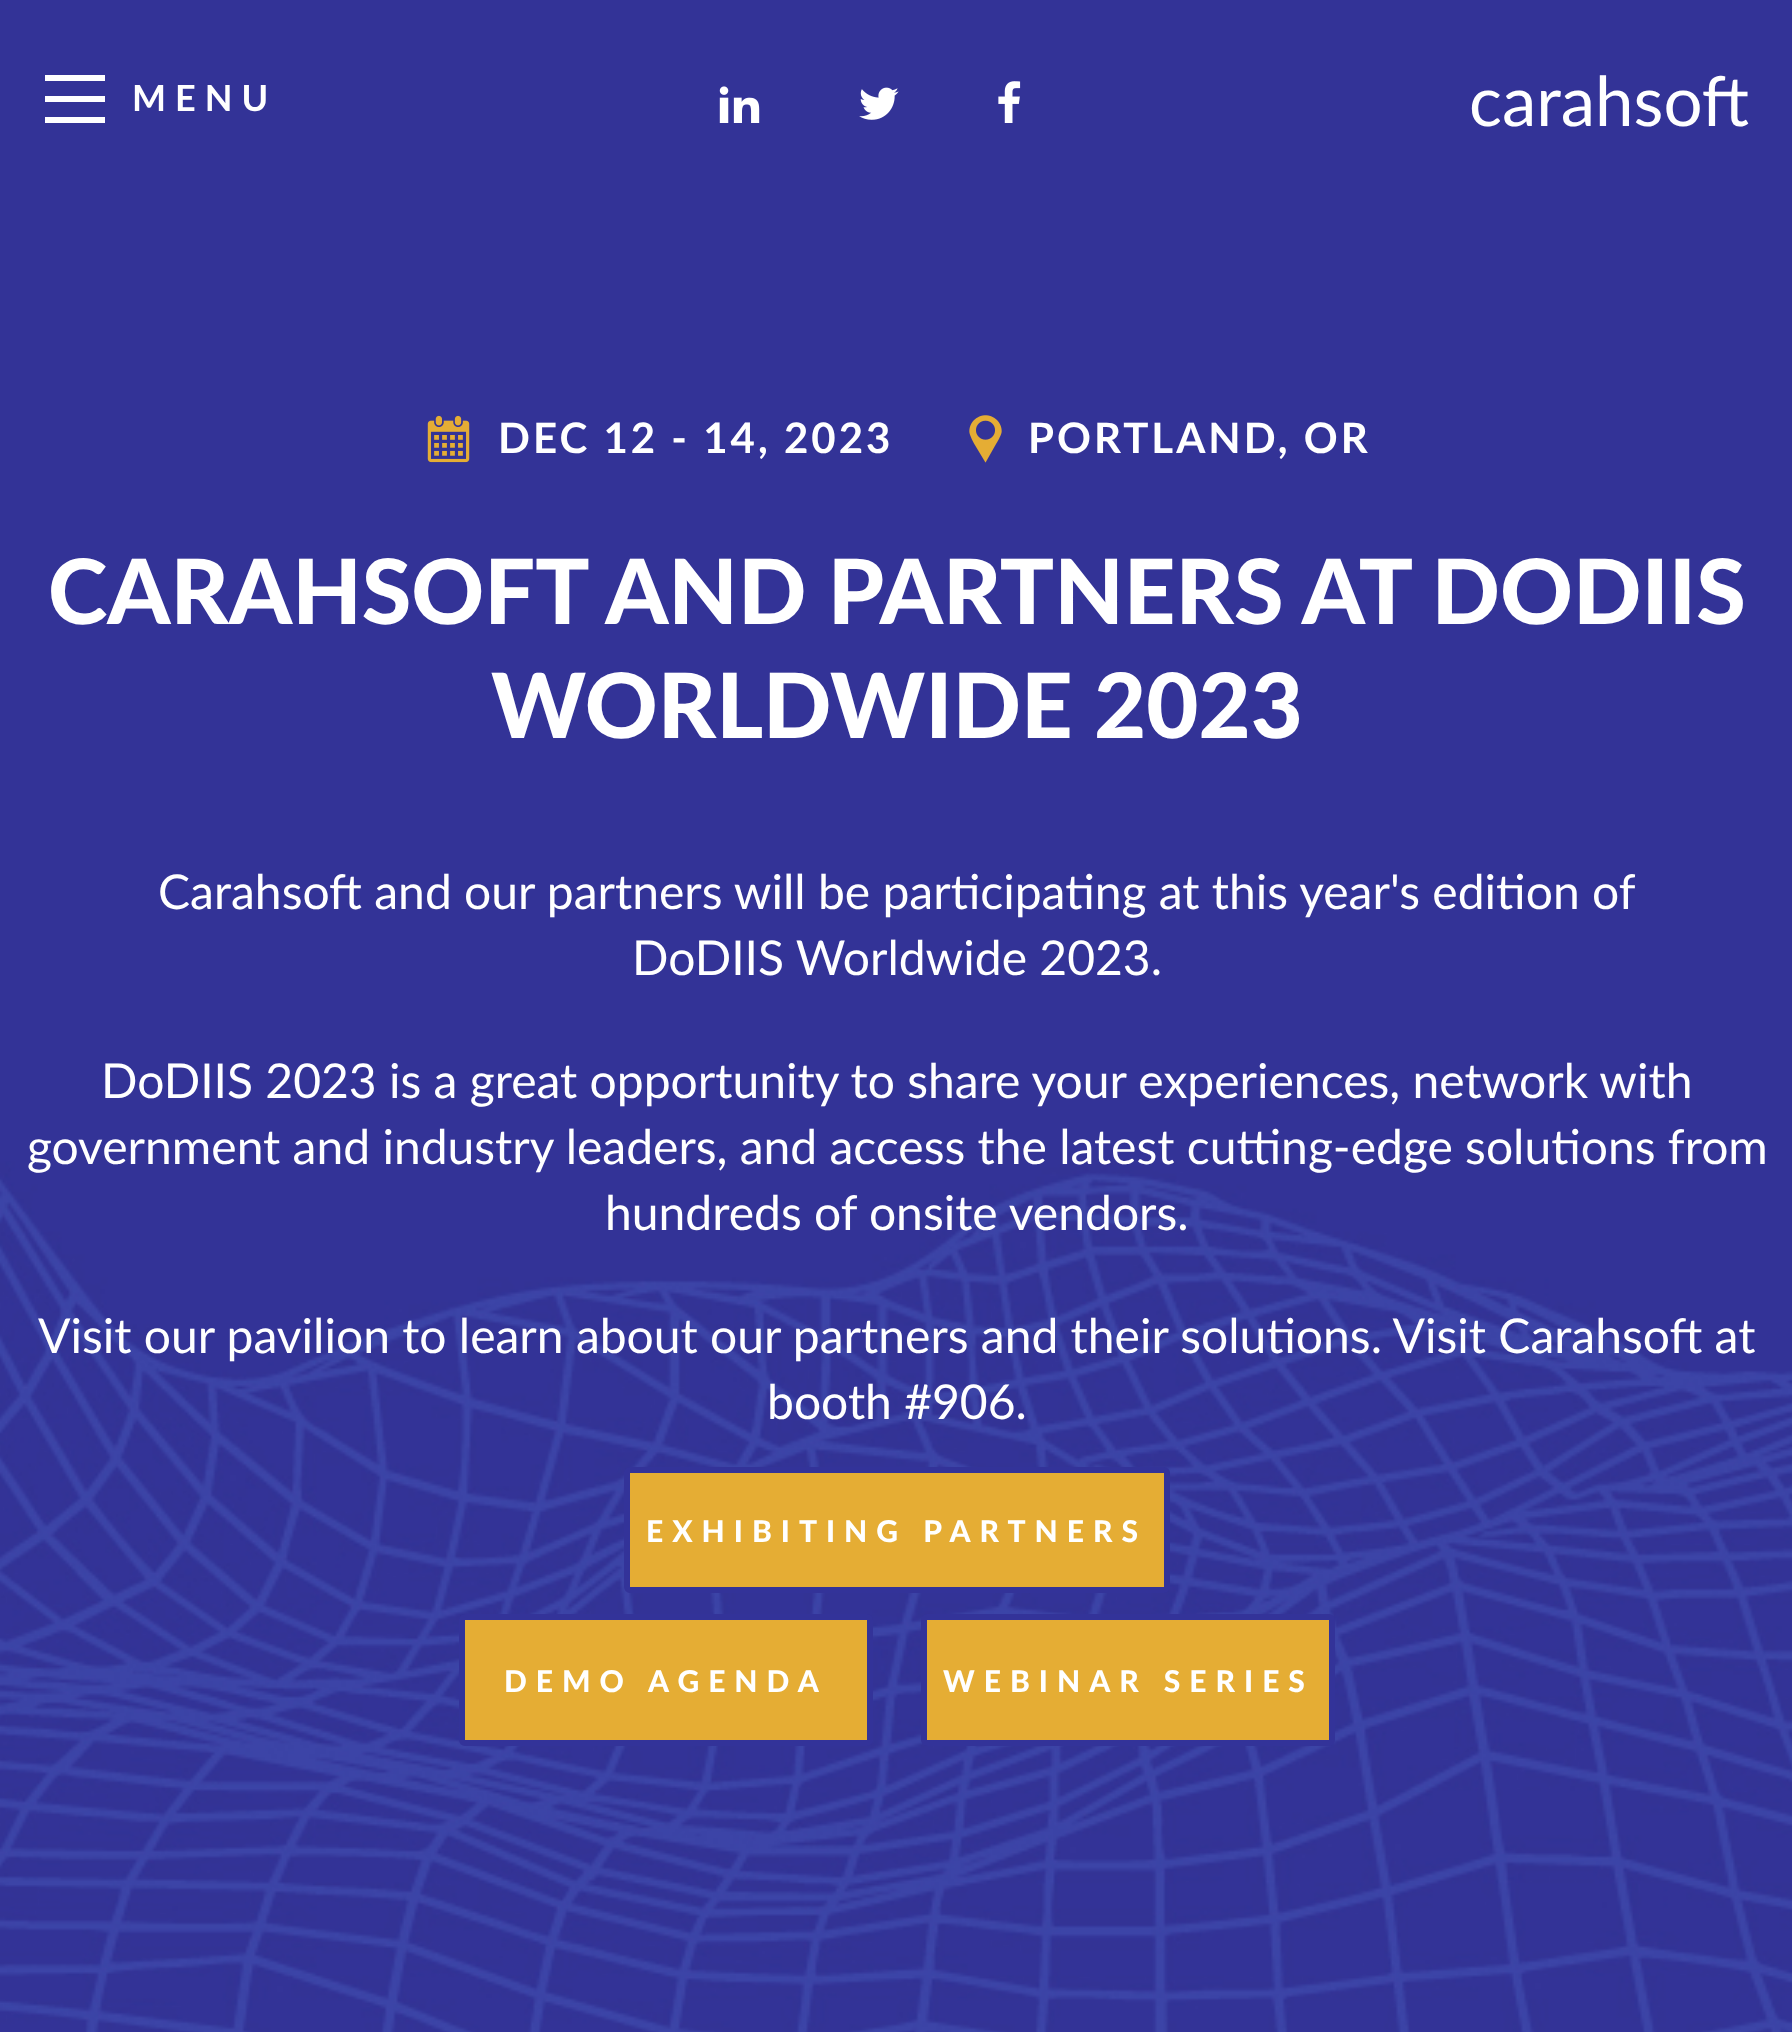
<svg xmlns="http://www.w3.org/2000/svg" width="1792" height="2032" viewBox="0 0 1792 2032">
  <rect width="100%" height="100%" fill="rgb(255,255,255)"/>
  <image x="0" y="0" width="1792" height="2032" href="pic1.png"/>
  <rect x="45" y="75" width="60" height="6" fill="rgb(255,255,255)"/>
  <rect x="45" y="96" width="60" height="6" fill="rgb(255,255,255)"/>
  <text x="132" y="111" font-family="Lato" font-size="36" font-weight="bold" letter-spacing="9" fill="rgb(255,255,255)">MENU</text>
  <rect x="45" y="117" width="60" height="6" fill="rgb(255,255,255)"/>
  <image x="719" y="86" width="41" height="37" href="pic2.png"/>
  <image x="859" y="87" width="40" height="33" href="pic3.png"/>
  <image x="998" y="81" width="23" height="42" href="pic4.png"/>
  <text x="1469" y="126" font-family="Lato" font-size="69" fill="rgb(255,255,255)">carahsoft</text>
  <image x="427" y="415" width="43" height="48" href="pic5.png"/>
  <text x="498" y="453" font-family="Lato" font-size="42" font-weight="bold" letter-spacing="3" fill="rgb(255,255,255)">DEC 12 - 14, 2023</text>
  <image x="969" y="415" width="33" height="48" href="pic6.png"/>
  <text x="1028" y="453" font-family="Lato" font-size="42" font-weight="bold" letter-spacing="3" fill="rgb(255,255,255)">PORTLAND, OR</text>
  <g font-family="Lato" font-size="90" font-weight="900" fill="rgb(255,255,255)">
    <text x="48" y="624">CARAHSOFT AND PARTNERS AT DODIIS</text>
    <text x="491" y="738">WORLDWIDE 2023</text>
  </g>
  <g font-family="Lato" font-size="48" fill="rgb(255,255,255)">
    <text x="158" y="909">Carahsoft and our partners will be participating at this year's edition of</text>
    <text x="632" y="975">DoDIIS Worldwide 2023.</text>
    <text x="101" y="1098">DoDIIS 2023 is a great opportunity to share your experiences, network with</text>
    <text x="27" y="1164">government and industry leaders, and access the latest cutting-edge solutions from</text>
    <text x="605" y="1230">hundreds of onsite vendors.</text>
    <text x="38" y="1353">Visit our pavilion to learn about our partners and their solutions. Visit Carahsoft at</text>
    <text x="767" y="1419">booth #906.</text>
  </g>
  <rect x="627" y="1470" width="540" height="120" rx="3" fill="rgb(229,173,52)" stroke="rgb(51,51,153)" stroke-width="6"/>
  <text x="646" y="1542" font-family="Lato" font-size="30" font-weight="900" letter-spacing="9" fill="rgb(255,255,255)">EXHIBITING PARTNERS</text>
  <rect x="462" y="1617" width="408" height="126" rx="3" fill="rgb(229,173,52)" stroke="rgb(51,51,153)" stroke-width="6"/>
  <text x="504" y="1692" font-family="Lato" font-size="30" font-weight="900" letter-spacing="9" fill="rgb(255,255,255)">DEMO AGENDA</text>
  <rect x="924" y="1617" width="408" height="126" rx="3" fill="rgb(229,173,52)" stroke="rgb(51,51,153)" stroke-width="6"/>
  <text x="943" y="1692" font-family="Lato" font-size="30" font-weight="900" letter-spacing="9" fill="rgb(255,255,255)">WEBINAR SERIES</text>
</svg>
